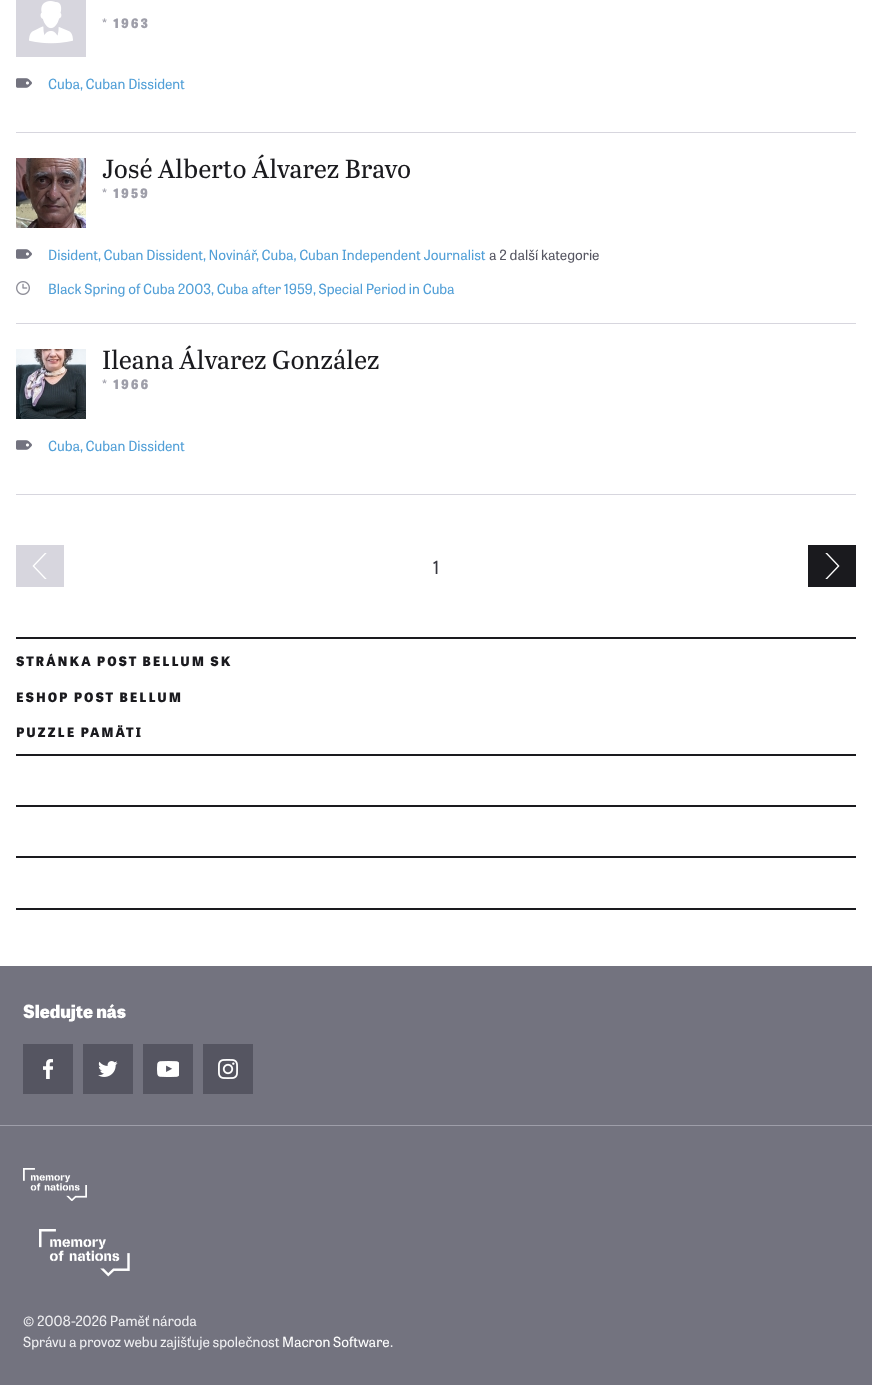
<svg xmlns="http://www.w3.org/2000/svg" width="872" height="1385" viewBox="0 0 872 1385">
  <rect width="100%" height="100%" fill="rgb(255,255,255)"/>
  <rect x="16" y="132" width="840" height="1" fill="rgb(215,214,222)"/>
  <rect x="16" y="0" width="70" height="57" fill="rgb(215,214,222)"/>
  <image x="29" y="1" width="44" height="43" href="pic1.png"/>
  <text x="102" y="28" font-family="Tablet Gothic" font-size="13" font-weight="800" letter-spacing="2" fill="rgb(158,158,169)">* 1963</text>
  <image x="16" y="78" width="16" height="10" href="pic2.png"/>
  <text x="48" y="89" font-family="Tablet Gothic" font-size="14" fill="rgb(81,159,215)">Cuba, Cuban Dissident</text>
  <rect x="16" y="323" width="840" height="1" fill="rgb(215,214,222)"/>
  <image x="16" y="158" width="70" height="70" href="pic3.png"/>
  <text x="102" y="178" font-family="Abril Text" font-size="26" fill="rgb(26,26,30)">José Alberto Álvarez Bravo</text>
  <text x="102" y="198" font-family="Tablet Gothic" font-size="13" font-weight="800" letter-spacing="2" fill="rgb(158,158,169)">* 1959</text>
  <image x="16" y="249" width="16" height="10" href="pic2.png"/>
  <g font-family="Tablet Gothic" font-size="14" fill="rgb(81,159,215)">
    <text x="48" y="260">Disident, Cuban Dissident, Novinář</text>
    <text x="256" y="260">, Cuba, Cuban Independent Journalist</text>
  </g>
  <text x="489" y="260" font-family="Tablet Gothic" font-size="14" fill="rgb(85,85,97)">a 2 další kategorie</text>
  <image x="16" y="281" width="14" height="14" href="pic4.png"/>
  <text x="48" y="294" font-family="Tablet Gothic" font-size="14" fill="rgb(81,159,215)">Black Spring of Cuba 2003, Cuba after 1959, Special Period in Cuba</text>
  <rect x="16" y="494" width="840" height="1" fill="rgb(215,214,222)"/>
  <image x="16" y="349" width="70" height="70" href="pic5.png"/>
  <text x="102" y="369" font-family="Abril Text" font-size="26" fill="rgb(26,26,30)">Ileana Álvarez González</text>
  <text x="102" y="389" font-family="Tablet Gothic" font-size="13" font-weight="800" letter-spacing="2" fill="rgb(158,158,169)">* 1966</text>
  <image x="16" y="440" width="16" height="10" href="pic2.png"/>
  <text x="48" y="451" font-family="Tablet Gothic" font-size="14" fill="rgb(81,159,215)">Cuba, Cuban Dissident</text>
  <rect x="16" y="545" width="48" height="42" fill="rgb(215,214,222)"/>
  <image x="32" y="553" width="15" height="26" href="pic6.png"/>
  <text x="433" y="574" font-family="Tablet Gothic" font-size="18" fill="rgb(56,56,64)">1</text>
  <rect x="808" y="545" width="48" height="42" fill="rgb(26,26,30)"/>
  <image x="825" y="553" width="15" height="26" href="pic7.png"/>
  <rect x="16" y="637" width="840" height="2" fill="rgb(26,26,30)"/>
  <rect x="16" y="754" width="840" height="2" fill="rgb(26,26,30)"/>
  <g font-family="Tablet Gothic" font-size="13" font-weight="800" letter-spacing="1.95" fill="rgb(26,26,30)">
    <text x="16" y="666">STRÁNKA POST BELLUM SK</text>
    <text x="16" y="702">ESHOP POST BELLUM</text>
    <text x="16" y="737">PUZZLE PAMÄTI</text>
  </g>
  <rect x="16" y="805" width="840" height="2" fill="rgb(26,26,30)"/>
  <rect x="16" y="856" width="840" height="2" fill="rgb(26,26,30)"/>
  <rect x="16" y="908" width="840" height="2" fill="rgb(26,26,30)"/>
  <rect x="0" y="966" width="872" height="159" fill="rgb(115,115,127)"/>
  <text x="23" y="1018" font-family="Tablet Gothic" font-size="18" font-weight="800" fill="rgb(255,255,255)">Sledujte nás</text>
  <rect x="23" y="1044" width="50" height="50" fill="rgb(85,85,97)"/>
  <image x="43" y="1059" width="10" height="20" href="pic8.png"/>
  <rect x="83" y="1044" width="50" height="50" fill="rgb(85,85,97)"/>
  <image x="98" y="1061" width="20" height="16" href="pic9.png"/>
  <rect x="143" y="1044" width="50" height="50" fill="rgb(85,85,97)"/>
  <image x="157" y="1061" width="22" height="16" href="pic10.png"/>
  <rect x="203" y="1044" width="50" height="50" fill="rgb(85,85,97)"/>
  <image x="218" y="1059" width="20" height="20" href="pic11.png"/>
  <rect x="0" y="1126" width="872" height="259" fill="rgb(115,115,127)"/>
  <rect x="0" y="1125" width="872" height="1" fill="rgb(158,158,169)"/>
  <image x="23" y="1168" width="64" height="33" href="pic12.png"/>
  <image x="39" y="1229" width="91" height="48" href="pic13.png"/>
  <g font-family="Tablet Gothic" font-size="14" fill="rgb(239,239,242)">
    <text>
      <tspan x="23" y="1326">© 2008-2026 Paměť národa</tspan>
      <tspan x="23" y="1347">Správu a provoz webu zajišťuje společnost</tspan>
    </text>
  </g>
  <text x="282" y="1347" font-family="Tablet Gothic" font-size="14" fill="rgb(255,255,255)">Macron Software</text>
  <text x="390" y="1347" font-family="Tablet Gothic" font-size="14" fill="rgb(239,239,242)">.</text>
</svg>
